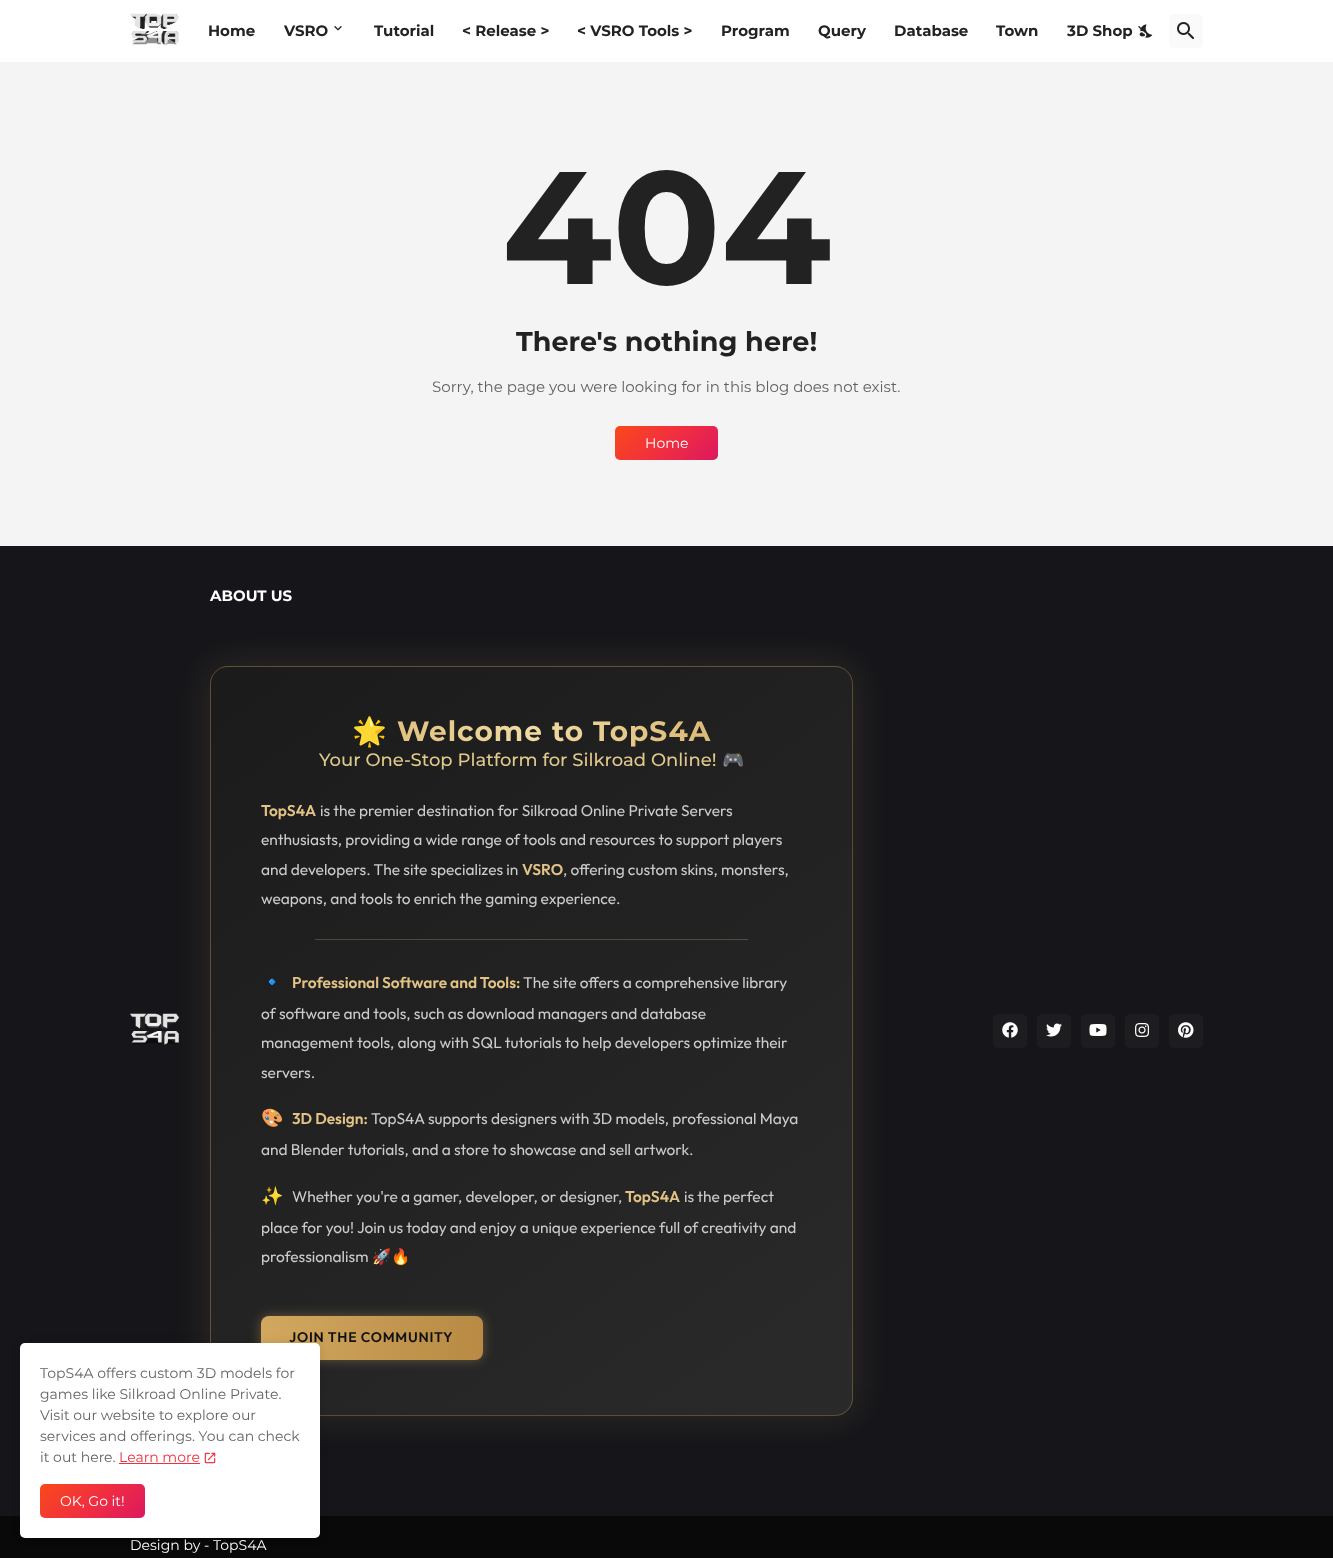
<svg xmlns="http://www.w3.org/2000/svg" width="1333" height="1558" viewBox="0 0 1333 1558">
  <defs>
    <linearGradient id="g1" gradientUnits="userSpaceOnUse" x1="632" y1="409" x2="701" y2="477"><stop offset="0" stop-color="rgb(248,73,27)"/><stop offset="0.5" stop-color="rgb(241,47,63)"/><stop offset="1" stop-color="rgb(220,24,96)"/></linearGradient>
    <clipPath id="clip1"><rect x="210" y="666" width="643" height="750" rx="18"/></clipPath>
    <linearGradient id="g2" gradientUnits="userSpaceOnUse" x1="250" y1="-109" x2="813" y2="695"><stop offset="0" stop-color="rgb(27,27,27)"/><stop offset="1" stop-color="rgb(42,42,42)"/></linearGradient>
    <linearGradient id="g3" gradientUnits="userSpaceOnUse" x1="-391" y1="639" x2="172" y2="1443"><stop offset="0" stop-color="rgb(27,27,27)"/><stop offset="1" stop-color="rgb(42,42,42)"/></linearGradient>
    <linearGradient id="g4" gradientUnits="userSpaceOnUse" x1="250" y1="639" x2="813" y2="1443"><stop offset="0" stop-color="rgb(27,27,27)"/><stop offset="1" stop-color="rgb(42,42,42)"/></linearGradient>
    <linearGradient id="g5" gradientUnits="userSpaceOnUse" x1="250" y1="639" x2="813" y2="1443"><stop offset="0" stop-color="rgb(77,69,54)"/><stop offset="1" stop-color="rgb(88,80,65)"/></linearGradient>
    <linearGradient id="g6" gradientUnits="userSpaceOnUse" x1="891" y1="639" x2="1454" y2="1443"><stop offset="0" stop-color="rgb(27,27,27)"/><stop offset="1" stop-color="rgb(42,42,42)"/></linearGradient>
    <linearGradient id="g7" gradientUnits="userSpaceOnUse" x1="250" y1="1387" x2="813" y2="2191"><stop offset="0" stop-color="rgb(27,27,27)"/><stop offset="1" stop-color="rgb(42,42,42)"/></linearGradient>
    <linearGradient id="g8" gradientUnits="userSpaceOnUse" x1="261" y1="732" x2="802" y2="732"><stop offset="0" stop-color="rgb(210,168,95)"/><stop offset="0.5" stop-color="rgb(240,219,162)"/><stop offset="1" stop-color="rgb(210,168,95)"/></linearGradient>
    <linearGradient id="g9" gradientUnits="userSpaceOnUse" x1="261" y1="1338" x2="483" y2="1338"><stop offset="0" stop-color="rgb(210,168,95)"/><stop offset="1" stop-color="rgb(184,138,67)"/></linearGradient>
    <linearGradient id="g10" gradientUnits="userSpaceOnUse" x1="58" y1="1466" x2="127" y2="1536"><stop offset="0" stop-color="rgb(248,73,27)"/><stop offset="0.5" stop-color="rgb(241,47,63)"/><stop offset="1" stop-color="rgb(220,24,96)"/></linearGradient>
  </defs>
  <rect width="100%" height="100%" fill="rgb(244,244,244)"/>
  <rect x="0" y="0" width="1333" height="62" fill="rgb(255,255,255)"/>
  <image x="130" y="13" width="49" height="32" href="pic1.png"/>
  <g font-family="Montserrat" font-size="15" font-weight="bold" fill="rgb(34,34,34)">
    <text x="208" y="36">Home</text>
    <text x="284" y="36">VSRO</text>
  </g>
  <image x="334" y="26" width="8" height="5" href="pic2.png"/>
  <g font-family="Montserrat" font-size="15" font-weight="bold" fill="rgb(34,34,34)">
    <text x="374" y="36">Tutorial</text>
    <text x="462" y="36">&lt; Release &gt;</text>
    <text x="577" y="36">&lt; VSRO Tools &gt;</text>
    <text x="721" y="36">Program</text>
    <text x="818" y="36">Query</text>
    <text x="894" y="36">Database</text>
    <text x="996" y="36">Town</text>
    <text x="1067" y="36">3D Shop</text>
  </g>
  <image x="1138" y="26" width="8" height="4" href="pic3.png"/>
  <image x="1139" y="24" width="14" height="14" href="pic4.png"/>
  <rect x="1169" y="14" width="34" height="34" rx="5" fill="rgb(250,250,250)"/>
  <image x="1177" y="22" width="17" height="17" href="pic5.png"/>
  <text x="502" y="284" font-family="Montserrat" font-size="160" font-weight="bold" fill="rgb(34,34,34)">404</text>
  <text x="516" y="351" font-family="Montserrat" font-size="27" font-weight="bold" fill="rgb(34,34,34)">There's nothing here!</text>
  <text x="432" y="392" font-family="Montserrat" font-size="15" fill="rgb(98,98,98)">Sorry, the page you were looking for in this blog does not exist.</text>
  <rect x="615" y="426" width="103" height="34" rx="5" fill="url(#g1)"/>
  <text x="645" y="448" font-family="Montserrat" font-size="14" fill="rgb(255,255,255)">Home</text>
  <rect x="0" y="546" width="1333" height="970" fill="rgb(22,22,26)"/>
  <image x="130" y="1013" width="50" height="32" href="pic6.png"/>
  <text x="210" y="601" font-family="Montserrat" font-size="15" font-weight="bold" fill="rgb(255,255,255)">ABOUT US</text>
  <rect x="210" y="666" width="643" height="750" rx="18" fill="rgba(205,165,95,0.15)" filter="blur(17.5px)"/>
  <g clip-path="url(#clip1)">
    <rect x="222" y="666" width="619" height="1" fill="url(#g2)"/>
    <rect x="210" y="678" width="1" height="665" fill="url(#g3)"/>
    <rect x="211" y="667" width="641" height="748" fill="url(#g4)"/>
  </g>
  <rect x="315" y="939" width="433" height="1" fill="url(#g5)"/>
  <g clip-path="url(#clip1)">
    <rect x="852" y="678" width="1" height="726" fill="url(#g6)"/>
    <rect x="320" y="1415" width="521" height="1" fill="url(#g7)"/>
  </g>
  <rect x="210.5" y="666.5" width="642" height="749" rx="17.5" fill="none" stroke="rgba(205,165,95,0.35)"/>
  <text x="352" y="741" font-family="Noto Color Emoji" font-size="28" font-weight="bold" letter-spacing="1" fill="url(#g8)">🌟</text>
  <text x="397" y="741" font-family="Montserrat" font-size="28" font-weight="bold" letter-spacing="1" fill="url(#g8)">Welcome to TopS4A</text>
  <text x="319" y="766" font-family="Montserrat" font-size="18" font-weight="500" fill="rgb(224,201,141)">Your One-Stop Platform for Silkroad Online!</text>
  <text x="722" y="766" font-family="Noto Color Emoji" font-size="18" fill="rgb(224,201,141)">🎮</text>
  <text x="261" y="816" font-family="Outfit" font-size="15.5" font-weight="600" fill="rgb(226,195,133)">TopS4A</text>
  <g font-family="Outfit" font-size="15.5" fill="rgb(204,204,204)">
    <text x="320" y="816">is the premier destination for Silkroad Online Private Servers</text>
    <text>
      <tspan x="261" y="845">enthusiasts, providing a wide range of tools and resources to support players</tspan>
      <tspan x="261" y="875">and developers. The site specializes in</tspan>
    </text>
  </g>
  <text x="522" y="875" font-family="Outfit" font-size="15.5" font-weight="600" fill="rgb(226,195,133)">VSRO</text>
  <g font-family="Outfit" font-size="15.5" fill="rgb(204,204,204)">
    <text x="563" y="875">, offering custom skins, monsters,</text>
    <text x="261" y="904">weapons, and tools to enrich the gaming experience.</text>
  </g>
  <text x="261" y="988" font-family="Noto Color Emoji" font-size="18" fill="rgb(204,204,204)">🔹</text>
  <text x="292" y="988" font-family="Outfit" font-size="15.5" font-weight="600" fill="rgb(226,195,133)">Professional Software and Tools:</text>
  <g font-family="Outfit" font-size="15.5" fill="rgb(204,204,204)">
    <text x="523" y="988">The site offers a comprehensive library</text>
    <text>
      <tspan x="261" y="1019">of software and tools, such as download managers and database</tspan>
      <tspan x="261" y="1048">management tools, along with SQL tutorials to help developers optimize their</tspan>
      <tspan x="261" y="1078">servers.</tspan>
    </text>
  </g>
  <text x="261" y="1124" font-family="Noto Color Emoji" font-size="18" fill="rgb(204,204,204)">🎨</text>
  <text x="292" y="1124" font-family="Outfit" font-size="15.5" font-weight="600" fill="rgb(226,195,133)">3D Design:</text>
  <g font-family="Outfit" font-size="15.5" fill="rgb(204,204,204)">
    <text x="371" y="1124">TopS4A supports designers with 3D models, professional Maya</text>
    <text x="261" y="1155">and Blender tutorials, and a store to showcase and sell artwork.</text>
  </g>
  <text x="261" y="1202" font-family="Noto Color Emoji" font-size="18" fill="rgb(204,204,204)">✨</text>
  <text x="292" y="1202" font-family="Outfit" font-size="15.5" fill="rgb(204,204,204)">Whether you're a gamer, developer, or designer,</text>
  <text x="625" y="1202" font-family="Outfit" font-size="15.5" font-weight="600" fill="rgb(226,195,133)">TopS4A</text>
  <g font-family="Outfit" font-size="15.5" fill="rgb(204,204,204)">
    <text x="684" y="1202">is the perfect</text>
    <text>
      <tspan x="261" y="1233">place for you! Join us today and enjoy a unique experience full of creativity and</tspan>
      <tspan x="261" y="1262">professionalism</tspan>
    </text>
  </g>
  <text x="372" y="1262" font-family="Noto Color Emoji" font-size="15.5" fill="rgb(204,204,204)">🚀🔥</text>
  <rect x="261" y="1316" width="222" height="44" rx="8" fill="rgba(200,160,100,0.4)" filter="blur(6px)"/>
  <rect x="261" y="1316" width="222" height="44" rx="8" fill="url(#g9)"/>
  <text x="289" y="1342" font-family="Outfit" font-size="14" font-weight="600" letter-spacing="0.75" fill="rgb(17,17,17)">JOIN THE COMMUNITY</text>
  <rect x="993" y="1014" width="34" height="34" rx="5" fill="rgb(29,29,32)"/>
  <image x="1002" y="1022" width="16" height="16" href="pic7.png"/>
  <rect x="1037" y="1014" width="34" height="34" rx="5" fill="rgb(29,29,32)"/>
  <image x="1046" y="1023" width="16" height="14" href="pic8.png"/>
  <rect x="1081" y="1014" width="34" height="34" rx="5" fill="rgb(29,29,32)"/>
  <image x="1089" y="1024" width="18" height="12" href="pic9.png"/>
  <rect x="1125" y="1014" width="34" height="34" rx="5" fill="rgb(29,29,32)"/>
  <image x="1135" y="1023" width="15" height="14" href="pic10.png"/>
  <rect x="1169" y="1014" width="34" height="34" rx="5" fill="rgb(29,29,32)"/>
  <image x="1178" y="1022" width="16" height="16" href="pic11.png"/>
  <rect x="0" y="1516" width="1333" height="42" fill="rgb(9,9,10)"/>
  <text x="130" y="1550" font-family="Montserrat" font-size="14" fill="rgb(255,255,255)">Design by - TopS4A</text>
  <rect x="20" y="1343" width="300" height="195" rx="5" fill="rgba(0,0,0,0.1)" filter="blur(5px)"/>
  <rect x="20" y="1343" width="300" height="195" rx="5" fill="rgb(255,255,255)"/>
  <g font-family="Montserrat" font-size="14" fill="rgb(98,98,98)">
    <text>
      <tspan x="40" y="1378">TopS4A offers custom 3D models for</tspan>
      <tspan x="40" y="1399">games like Silkroad Online Private.</tspan>
      <tspan x="40" y="1420">Visit our website to explore our</tspan>
      <tspan x="40" y="1441">services and offerings. You can check</tspan>
      <tspan x="40" y="1462">it out here.</tspan>
    </text>
  </g>
  <text x="119" y="1462" font-family="Montserrat" font-size="14" fill="rgb(241,47,63)">Learn more</text>
  <rect x="119" y="1463" width="81" height="1" fill="rgb(241,47,63)"/>
  <image x="204" y="1452" width="12" height="12" href="pic12.png"/>
  <rect x="40" y="1484" width="105" height="34" rx="5" fill="url(#g10)"/>
  <text x="60" y="1506" font-family="Montserrat" font-size="14" fill="rgb(255,255,255)">OK, Go it!</text>
</svg>
